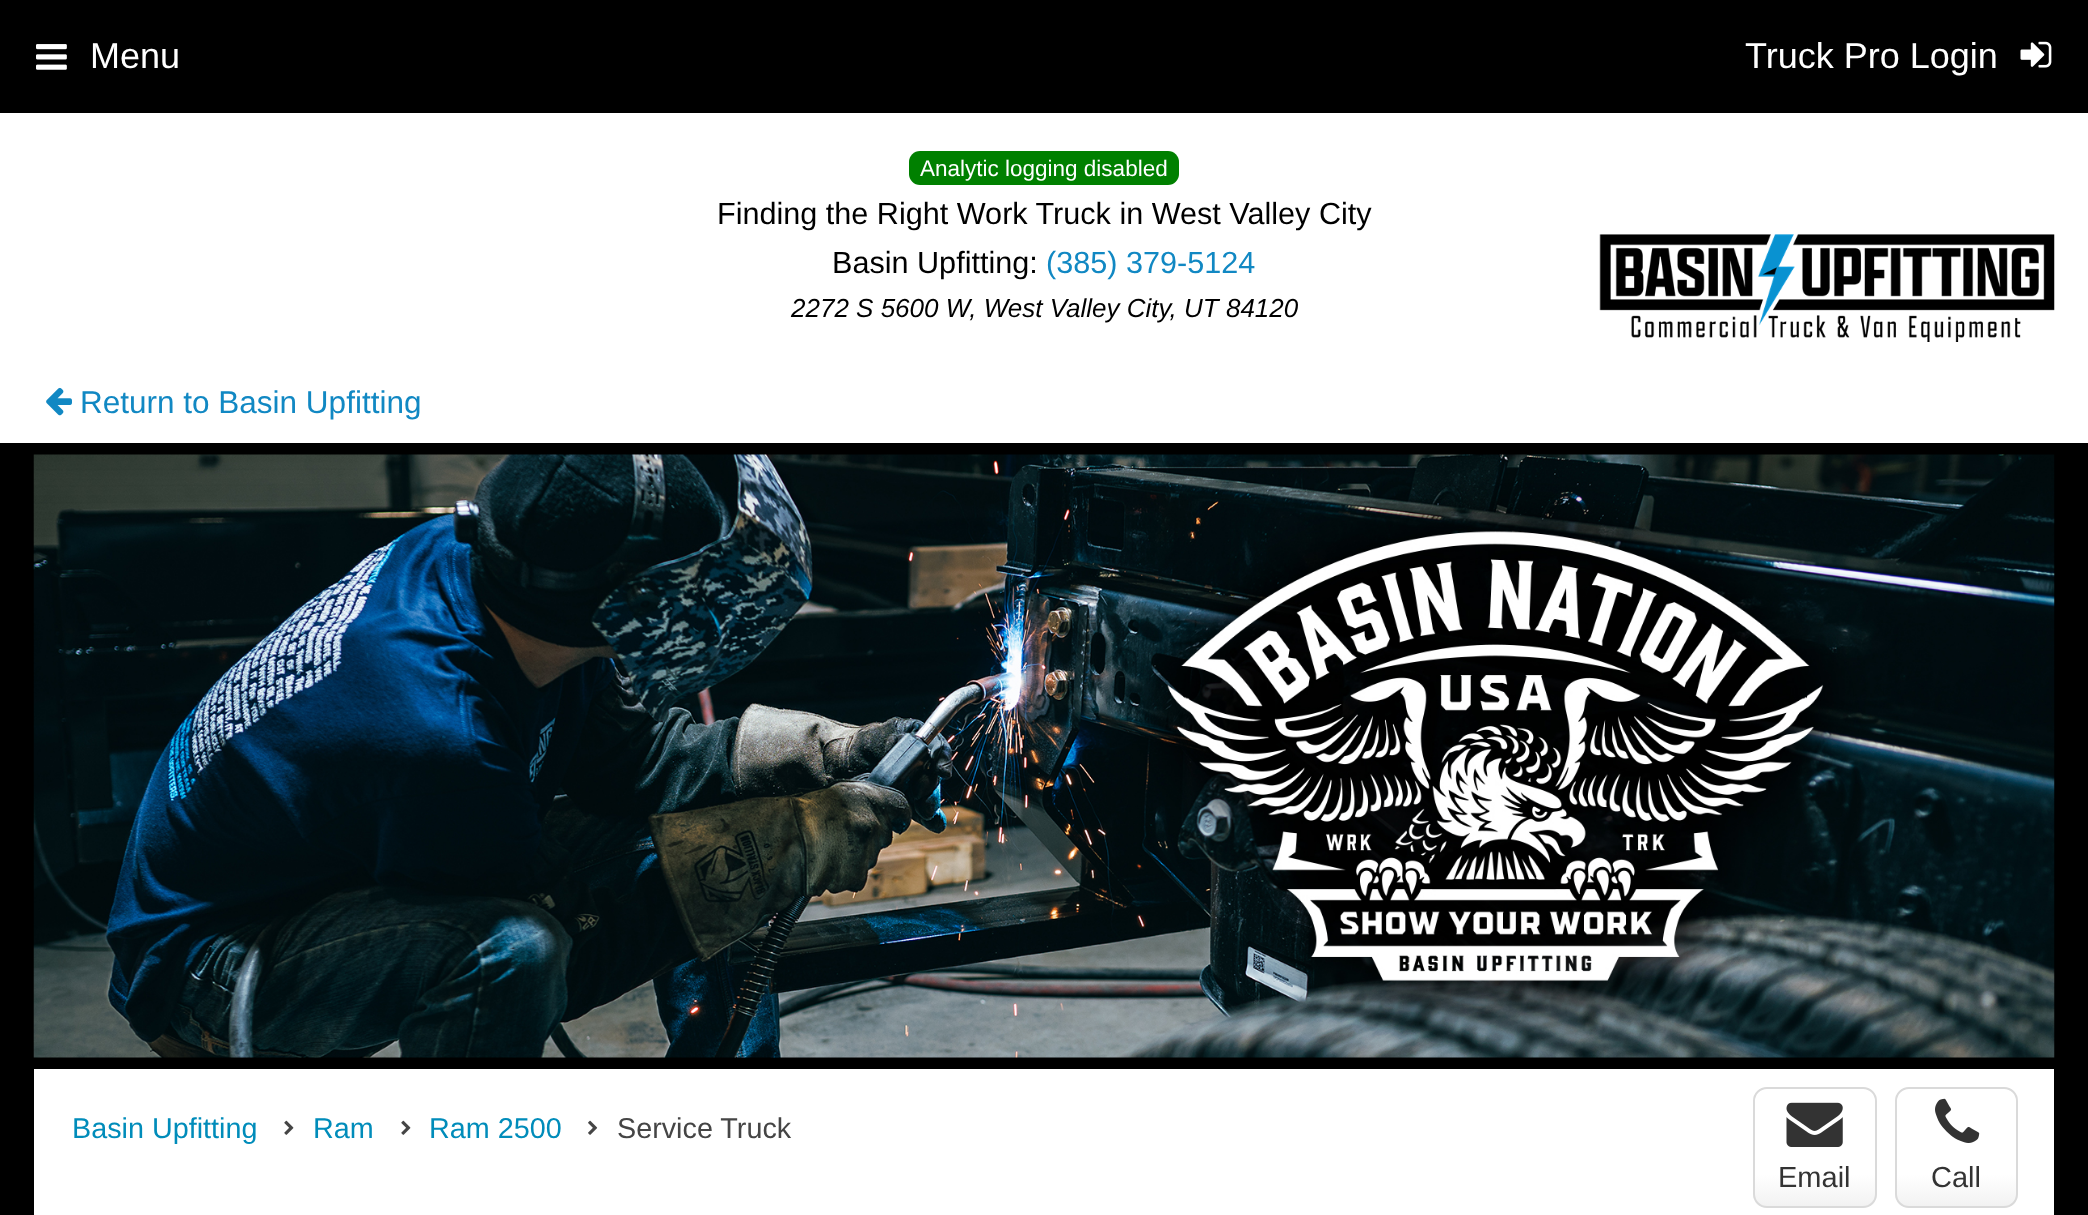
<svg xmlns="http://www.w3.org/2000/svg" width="2088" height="1215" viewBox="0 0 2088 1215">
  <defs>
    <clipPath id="clip1"><rect x="1753" y="1087" width="124" height="121" rx="14"/></clipPath>
    <linearGradient id="g1" gradientUnits="userSpaceOnUse" x1="1815" y1="1089" x2="1815" y2="1206"><stop offset="0.73" stop-color="rgb(255,255,255)"/><stop offset="1" stop-color="rgb(242,242,242)"/></linearGradient>
    <clipPath id="clip2"><rect x="1895" y="1087" width="123" height="121" rx="14"/></clipPath>
    <linearGradient id="g2" gradientUnits="userSpaceOnUse" x1="1956" y1="1089" x2="1956" y2="1206"><stop offset="0.73" stop-color="rgb(255,255,255)"/><stop offset="1" stop-color="rgb(242,242,242)"/></linearGradient>
  </defs>
  <rect width="100%" height="100%" fill="rgb(0,0,0)"/>
  <image x="36" y="44" width="31" height="26" href="pic1.png"/>
  <g font-family="Liberation Sans" font-size="36" fill="rgb(255,255,255)">
    <text x="90" y="68">Menu</text>
    <text x="1745" y="68">Truck Pro Login</text>
  </g>
  <image x="2020" y="41" width="32" height="27" href="pic2.png"/>
  <rect x="0" y="113" width="2088" height="330" fill="rgb(255,255,255)"/>
  <rect x="909" y="151" width="270" height="34" rx="11" fill="rgb(0,128,0)"/>
  <text x="920" y="176" font-family="Liberation Sans" font-size="22.5" fill="rgb(255,255,255)">Analytic logging disabled</text>
  <g font-family="Liberation Sans" font-size="30.6" fill="rgb(0,0,0)">
    <text x="717" y="224">Finding the Right Work Truck in West Valley City</text>
    <text x="832" y="273">Basin Upfitting:</text>
  </g>
  <text x="1046" y="273" font-family="Liberation Sans" font-size="30.6" fill="rgb(17,136,195)">(385) 379-5124</text>
  <text x="791" y="317" font-family="Liberation Sans" font-size="26" font-style="italic" fill="rgb(0,0,0)">2272 S 5600 W, West Valley City, UT 84120</text>
  <image x="1599" y="234" width="456" height="108" href="pic3.png"/>
  <image x="46" y="387" width="26" height="29" href="pic4.png"/>
  <text x="80" y="413" font-family="Liberation Sans" font-size="31.5" fill="rgb(17,136,195)">Return to Basin Upfitting</text>
  <image x="33" y="454" width="2022" height="604" href="pic5.png"/>
  <rect x="34" y="1069" width="2020" height="146" fill="rgb(255,255,255)"/>
  <text x="72" y="1138" font-family="Liberation Sans" font-size="28.75" fill="rgb(0,140,186)">Basin Upfitting</text>
  <image x="284" y="1120" width="10" height="15" href="pic6.png"/>
  <text x="313" y="1138" font-family="Liberation Sans" font-size="28.75" fill="rgb(0,140,186)">Ram</text>
  <image x="401" y="1120" width="10" height="15" href="pic6.png"/>
  <text x="429" y="1138" font-family="Liberation Sans" font-size="28.75" fill="rgb(0,140,186)">Ram 2500</text>
  <image x="588" y="1120" width="10" height="15" href="pic7.png"/>
  <text x="617" y="1138" font-family="Liberation Sans" font-size="28.75" fill="rgb(69,69,69)">Service Truck</text>
  <g clip-path="url(#clip1)">
    <rect x="1753" y="1089" width="124" height="117" fill="url(#g1)"/>
  </g>
  <rect x="1754" y="1088" width="122" height="119" rx="13" fill="none" stroke="rgb(218,218,218)" stroke-width="2"/>
  <image x="1786" y="1102" width="57" height="45" href="pic8.png"/>
  <text x="1778" y="1187" font-family="Liberation Sans" font-size="29" fill="rgb(51,51,51)">Email</text>
  <g clip-path="url(#clip2)">
    <rect x="1895" y="1089" width="123" height="117" fill="url(#g2)"/>
  </g>
  <rect x="1896" y="1088" width="121" height="119" rx="13" fill="none" stroke="rgb(218,218,218)" stroke-width="2"/>
  <image x="1935" y="1098" width="45" height="45" href="pic9.png"/>
  <text x="1931" y="1187" font-family="Liberation Sans" font-size="29" fill="rgb(51,51,51)">Call</text>
</svg>
